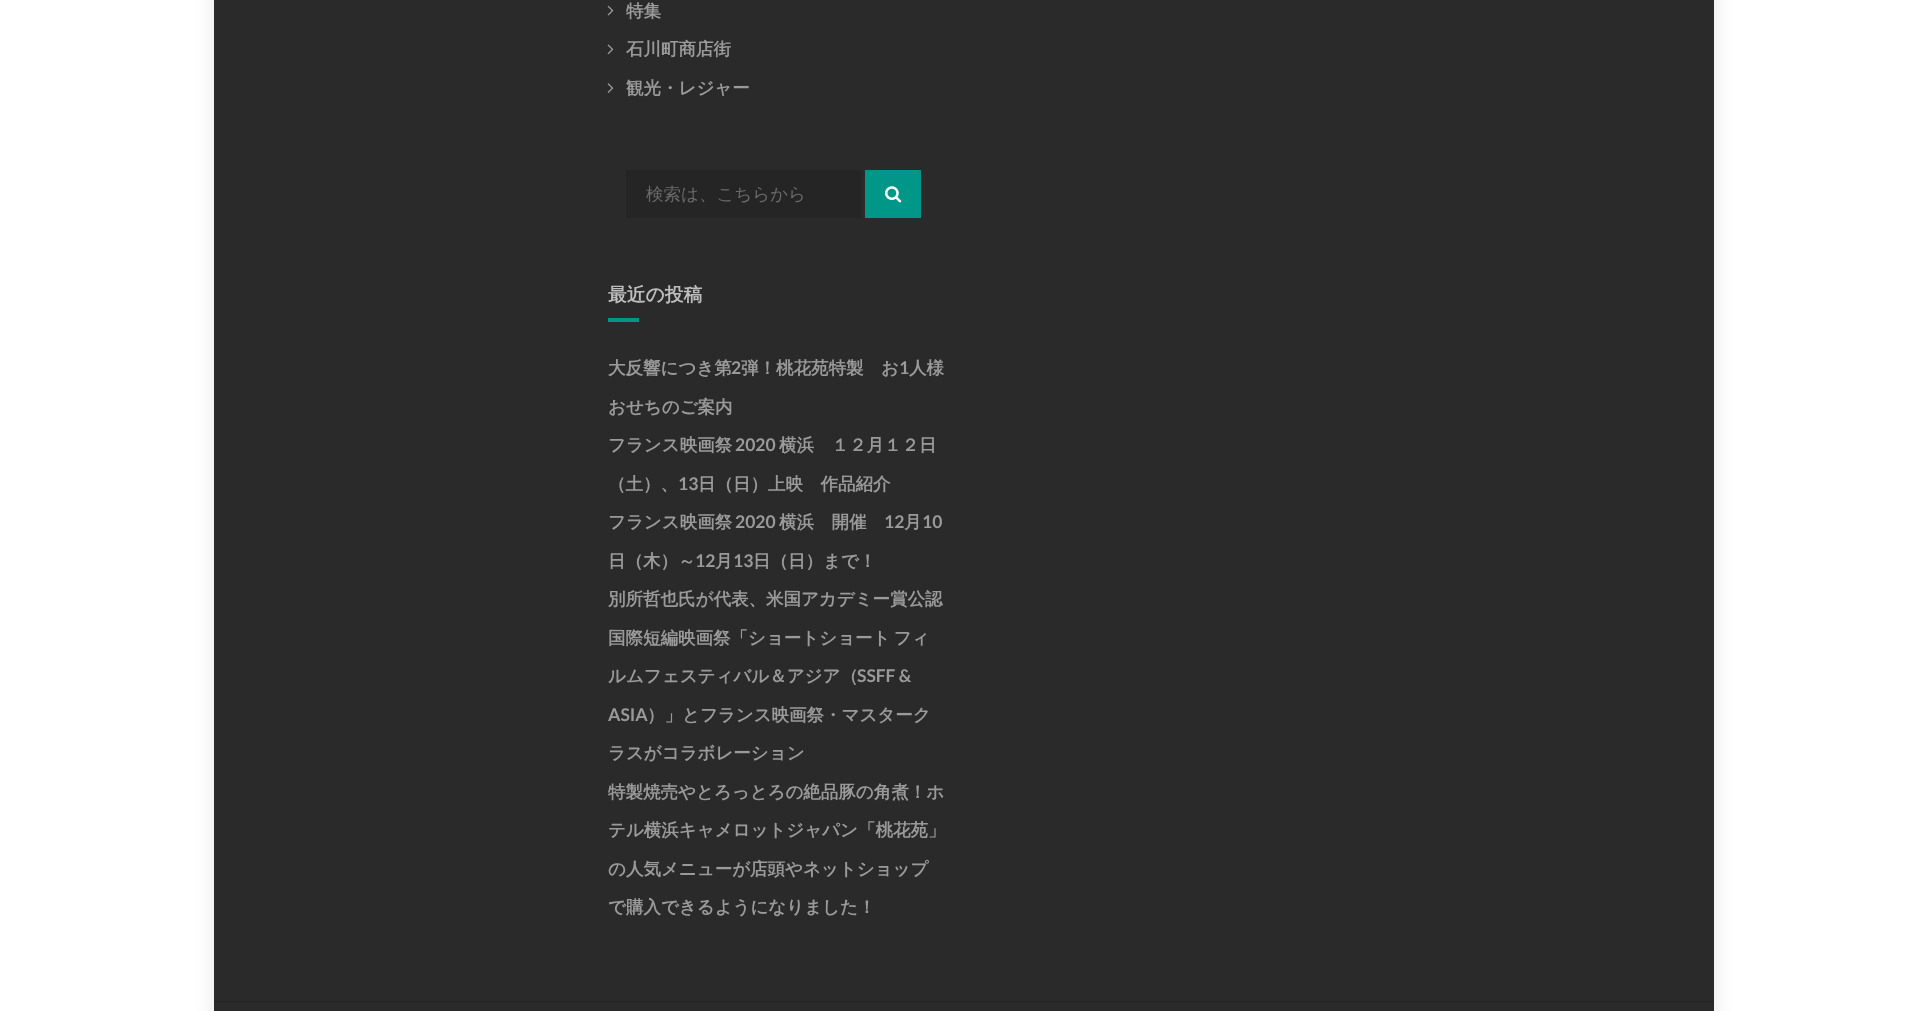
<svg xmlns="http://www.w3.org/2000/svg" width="1927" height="1011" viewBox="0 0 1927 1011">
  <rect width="100%" height="100%" fill="rgb(255,255,255)"/>
  <rect x="214" y="-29" width="1500" height="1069" fill="rgba(0,0,0,0.1)" filter="blur(9.5px)"/>
  <rect x="214" y="0" width="1500" height="1011" fill="rgb(42,42,42)"/>
  <image x="607" y="5" width="7" height="11" href="pic1.png"/>
  <text x="626" y="17" font-family="WenQuanYi Zen Hei" font-size="17.5" font-weight="bold" fill="rgb(154,154,154)">特集</text>
  <image x="607" y="44" width="7" height="11" href="pic2.png"/>
  <text x="626" y="55" font-family="WenQuanYi Zen Hei" font-size="17.5" font-weight="bold" fill="rgb(154,154,154)">石川町商店街</text>
  <image x="607" y="83" width="7" height="10" href="pic3.png"/>
  <text x="626" y="94" font-family="WenQuanYi Zen Hei" font-size="17.5" font-weight="bold" fill="rgb(154,154,154)">観光・レジャー</text>
  <rect x="626" y="170" width="235" height="48" fill="rgb(37,37,37)"/>
  <text x="646" y="200" font-family="WenQuanYi Zen Hei" font-size="17.5" font-weight="500" fill="rgb(106,106,106)">検索は、こちらから</text>
  <rect x="865" y="170" width="56" height="48" fill="rgb(0,150,136)"/>
  <image x="885" y="186" width="17" height="17" href="pic4.png"/>
  <text x="608" y="301" font-family="WenQuanYi Zen Hei" font-size="18.75" font-weight="bold" fill="rgb(190,190,190)">最近の投稿</text>
  <rect x="608" y="318" width="31" height="4" fill="rgb(0,150,136)"/>
  <text x="608" y="374" font-family="WenQuanYi Zen Hei" font-size="17.5" font-weight="bold" fill="rgb(154,154,154)">大反響につき第</text>
  <text x="731" y="374" font-family="Lato" font-size="17.5" font-weight="bold" fill="rgb(154,154,154)">2</text>
  <text x="741" y="374" font-family="WenQuanYi Zen Hei" font-size="17.5" font-weight="bold" fill="rgb(154,154,154)">弾！桃花苑特製　お</text>
  <text x="899" y="374" font-family="Lato" font-size="17.5" font-weight="bold" fill="rgb(154,154,154)">1</text>
  <g font-family="WenQuanYi Zen Hei" font-size="17.5" font-weight="bold" fill="rgb(154,154,154)">
    <text x="909" y="374">人様</text>
    <text x="608" y="413">おせちのご案内</text>
    <text x="608" y="451">フランス映画祭</text>
  </g>
  <text x="735" y="451" font-family="Lato" font-size="17.5" font-weight="bold" fill="rgb(154,154,154)">2020</text>
  <g font-family="WenQuanYi Zen Hei" font-size="17.5" font-weight="bold" fill="rgb(154,154,154)">
    <text x="779" y="451">横浜　１２月１２日</text>
    <text x="608" y="490">（土）、</text>
  </g>
  <text x="678" y="490" font-family="Lato" font-size="17.5" font-weight="bold" fill="rgb(154,154,154)">13</text>
  <g font-family="WenQuanYi Zen Hei" font-size="17.5" font-weight="bold" fill="rgb(154,154,154)">
    <text x="698" y="490">日（日）上映　作品紹介</text>
    <text x="608" y="528">フランス映画祭</text>
  </g>
  <text x="735" y="528" font-family="Lato" font-size="17.5" font-weight="bold" fill="rgb(154,154,154)">2020</text>
  <text x="779" y="528" font-family="WenQuanYi Zen Hei" font-size="17.5" font-weight="bold" fill="rgb(154,154,154)">横浜　開催</text>
  <text x="884" y="528" font-family="Lato" font-size="17.5" font-weight="bold" fill="rgb(154,154,154)">12</text>
  <text x="904" y="528" font-family="WenQuanYi Zen Hei" font-size="17.5" font-weight="bold" fill="rgb(154,154,154)">月</text>
  <text x="922" y="528" font-family="Lato" font-size="17.5" font-weight="bold" fill="rgb(154,154,154)">10</text>
  <text x="608" y="567" font-family="WenQuanYi Zen Hei" font-size="17.5" font-weight="bold" fill="rgb(154,154,154)">日（木）～</text>
  <text x="695" y="567" font-family="Lato" font-size="17.5" font-weight="bold" fill="rgb(154,154,154)">12</text>
  <text x="715" y="567" font-family="WenQuanYi Zen Hei" font-size="17.5" font-weight="bold" fill="rgb(154,154,154)">月</text>
  <text x="733" y="567" font-family="Lato" font-size="17.5" font-weight="bold" fill="rgb(154,154,154)">13</text>
  <g font-family="WenQuanYi Zen Hei" font-size="17.5" font-weight="bold" fill="rgb(154,154,154)">
    <text x="753" y="567">日（日）まで！</text>
    <text x="608" y="605">別所哲也氏が代表、米国アカデミー賞公認</text>
    <text x="608" y="644" word-spacing="-2">国際短編映画祭「ショートショート フィ</text>
    <text x="608" y="682">ルムフェスティバル＆アジア（</text>
  </g>
  <g font-family="Lato" font-size="17.5" font-weight="bold" fill="rgb(154,154,154)">
    <text x="857" y="682">SSFF &amp;</text>
    <text x="608" y="721">ASIA</text>
  </g>
  <g font-family="WenQuanYi Zen Hei" font-size="17.5" font-weight="bold" fill="rgb(154,154,154)">
    <text x="647" y="721">）」とフランス映画祭・マスターク</text>
    <text x="608" y="759">ラスがコラボレーション</text>
    <text x="608" y="798">特製焼売やとろっとろの絶品豚の角煮！ホ</text>
    <text x="608" y="836">テル横浜キャメロットジャパン「桃花苑」</text>
    <text x="608" y="875">の人気メニューが店頭やネットショップ</text>
    <text x="608" y="913">で購入できるようになりました！</text>
  </g>
  <rect x="214" y="1001" width="1500" height="1" fill="rgb(34,34,34)"/>
</svg>
